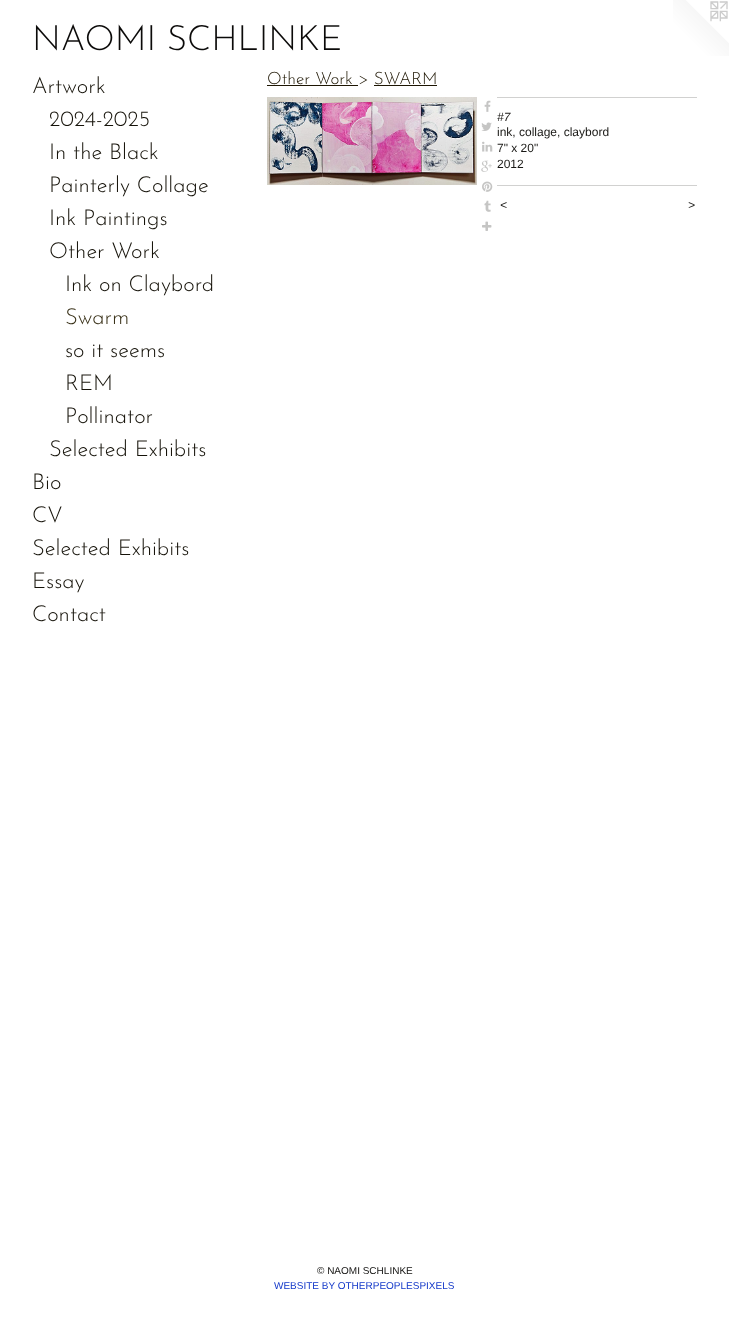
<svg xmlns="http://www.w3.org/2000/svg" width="729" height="1339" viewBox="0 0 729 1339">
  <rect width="100%" height="100%" fill="rgb(255,255,255)"/>
  <text x="32" y="50" font-family="Josefin Sans" font-size="35" font-weight="100" fill="rgb(11,10,9)">NAOMI SCHLINKE</text>
  <image x="673" y="0" width="56" height="56" href="pic1.png"/>
  <g font-family="Josefin Sans" font-size="22" font-weight="100" fill="rgb(21,18,9)">
    <text x="32" y="93">Artwork</text>
    <text>
      <tspan x="49" y="126">2024-2025</tspan>
      <tspan x="49" y="159">In the Black</tspan>
      <tspan x="49" y="192">Painterly Collage</tspan>
      <tspan x="49" y="225">Ink Paintings</tspan>
      <tspan x="49" y="258">Other Work</tspan>
    </text>
    <text x="65" y="291">Ink on Claybord</text>
  </g>
  <text x="65" y="324" font-family="Josefin Sans" font-size="22" font-weight="100" fill="rgb(57,49,24)">Swarm</text>
  <g font-family="Josefin Sans" font-size="22" font-weight="100" fill="rgb(21,18,9)">
    <text>
      <tspan x="65" y="357">so it seems</tspan>
      <tspan x="65" y="390">REM</tspan>
      <tspan x="65" y="423">Pollinator</tspan>
    </text>
    <text x="49" y="456">Selected Exhibits</text>
    <text>
      <tspan x="32" y="489">Bio</tspan>
      <tspan x="32" y="522">CV</tspan>
      <tspan x="32" y="555">Selected Exhibits</tspan>
      <tspan x="32" y="588">Essay</tspan>
      <tspan x="32" y="621">Contact</tspan>
    </text>
  </g>
  <text x="267" y="84" font-family="Josefin Sans" font-size="17" font-weight="100" fill="rgb(29,21,2)">Other Work &gt; SWARM</text>
  <rect x="267" y="85" width="91" height="1" fill="rgb(29,21,2)"/>
  <rect x="374" y="85" width="63" height="1" fill="rgb(29,21,2)"/>
  <image x="267" y="97" width="210" height="88" href="pic2.png"/>
  <image x="484" y="100" width="7" height="12" href="pic3.png"/>
  <image x="481" y="122" width="11" height="9" href="pic4.png"/>
  <image x="482" y="141" width="11" height="11" href="pic5.png"/>
  <image x="481" y="160" width="11" height="12" href="pic6.png"/>
  <image x="482" y="181" width="11" height="11" href="pic7.png"/>
  <image x="484" y="200" width="7" height="12" href="pic8.png"/>
  <image x="482" y="221" width="10" height="10" href="pic9.png"/>
  <rect x="497" y="97" width="200" height="1" fill="rgb(209,209,208)"/>
  <text x="497" y="121" font-family="Liberation Sans" font-size="12" font-style="italic" fill="rgb(25,24,21)">#7</text>
  <g font-family="Liberation Sans" font-size="12" fill="rgb(25,24,21)">
    <text>
      <tspan x="497" y="136">ink, collage, claybord</tspan>
      <tspan x="497" y="152">7" x 20"</tspan>
      <tspan x="497" y="168">2012</tspan>
    </text>
  </g>
  <rect x="497" y="185" width="200" height="1" fill="rgb(209,209,208)"/>
  <g font-family="Liberation Sans" font-size="12" font-style="italic" letter-spacing="1" fill="rgb(25,24,21)">
    <text x="500" y="209">&lt;</text>
    <text x="688" y="209">&gt;</text>
  </g>
  <text x="317" y="1274" font-family="Liberation Sans" font-size="10" fill="rgb(19,18,16)">© NAOMI SCHLINKE</text>
  <text x="274" y="1289" font-family="Liberation Sans" font-size="10" fill="rgb(19,56,201)">WEBSITE BY OTHERPEOPLESPIXELS</text>
</svg>
